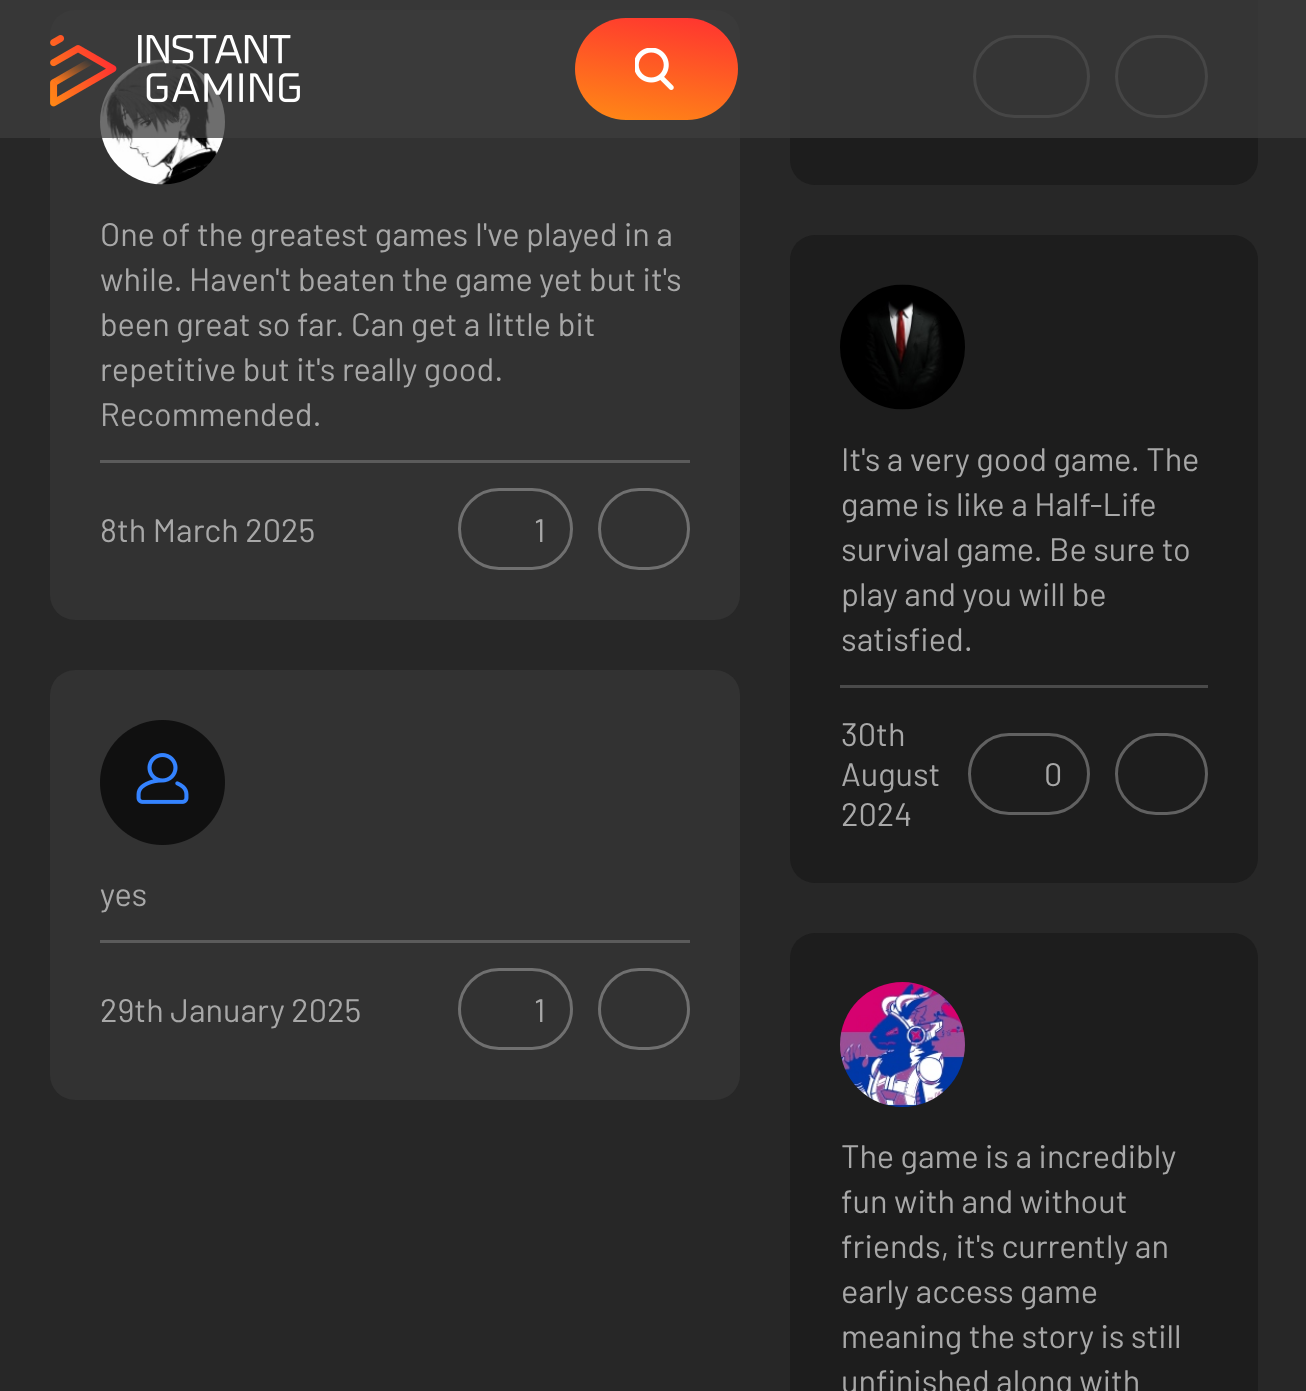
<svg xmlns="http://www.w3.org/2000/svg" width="1306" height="1391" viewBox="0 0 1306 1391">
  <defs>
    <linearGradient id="g1" gradientUnits="userSpaceOnUse" x1="644" y1="132" x2="666" y2="5.2"><stop offset="0" stop-color="rgb(255,138,21)"/><stop offset="1" stop-color="rgb(255,49,49)"/></linearGradient>
  </defs>
  <rect width="100%" height="100%" fill="rgb(39,39,39)"/>
  <rect x="50" y="10" width="690" height="610" rx="25" fill="rgb(50,50,50)"/>
  <image x="100" y="59" width="125" height="126" href="pic3.png"/>
  <rect x="790" y="-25" width="468" height="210" rx="25" fill="rgb(29,29,29)"/>
  <rect x="974.5" y="36.5" width="114" height="80" rx="40" fill="none" stroke="rgb(97,97,97)" stroke-width="3"/>
  <rect x="1116.5" y="36.5" width="90" height="80" rx="40" fill="none" stroke="rgb(97,97,97)" stroke-width="3"/>
  <rect x="0" y="0" width="1306" height="138" fill="rgba(61,61,61,0.75)"/>
  <image x="50" y="35" width="250" height="72" href="pic1.png"/>
  <rect x="575" y="18" width="163" height="102" rx="51" fill="url(#g1)"/>
  <image x="635" y="48" width="39" height="42" href="pic2.png"/>
  <g font-family="Barlow" font-size="32.5" fill="rgb(168,168,168)">
    <text>
      <tspan x="100" y="246">One of the greatest games I've played in a</tspan>
      <tspan x="100" y="291">while. Haven't beaten the game yet but it's</tspan>
      <tspan x="100" y="336">been great so far. Can get a little bit</tspan>
      <tspan x="100" y="381">repetitive but it's really good.</tspan>
      <tspan x="100" y="426">Recommended.</tspan>
    </text>
  </g>
  <rect x="100" y="460" width="590" height="3" fill="rgb(91,91,91)"/>
  <text x="100" y="542" font-family="Barlow" font-size="32.5" fill="rgb(168,168,168)">8th March 2025</text>
  <rect x="459.5" y="489.5" width="112" height="79" rx="39.5" fill="none" stroke="rgb(112,112,112)" stroke-width="3"/>
  <text x="534" y="542" font-family="Barlow" font-size="32.5" fill="rgb(168,168,168)">1</text>
  <rect x="599.5" y="489.5" width="89" height="79" rx="39.5" fill="none" stroke="rgb(112,112,112)" stroke-width="3"/>
  <rect x="50" y="670" width="690" height="430" rx="25" fill="rgb(50,50,50)"/>
  <image x="100" y="720" width="125" height="125" href="pic4.png"/>
  <text x="100" y="906" font-family="Barlow" font-size="32.5" fill="rgb(168,168,168)">yes</text>
  <rect x="100" y="940" width="590" height="3" fill="rgb(91,91,91)"/>
  <text x="100" y="1022" font-family="Barlow" font-size="32.5" fill="rgb(168,168,168)">29th January 2025</text>
  <rect x="459.5" y="969.5" width="112" height="79" rx="39.5" fill="none" stroke="rgb(112,112,112)" stroke-width="3"/>
  <text x="534" y="1022" font-family="Barlow" font-size="32.5" fill="rgb(168,168,168)">1</text>
  <rect x="599.5" y="969.5" width="89" height="79" rx="39.5" fill="none" stroke="rgb(112,112,112)" stroke-width="3"/>
  <rect x="790" y="235" width="468" height="648" rx="25" fill="rgb(29,29,29)"/>
  <image x="840" y="284" width="125" height="126" href="pic5.png"/>
  <g font-family="Barlow" font-size="32.5" fill="rgb(168,168,168)">
    <text>
      <tspan x="841" y="471">It's a very good game. The</tspan>
      <tspan x="841" y="516">game is like a Half-Life</tspan>
      <tspan x="841" y="561">survival game. Be sure to</tspan>
      <tspan x="841" y="606">play and you will be</tspan>
      <tspan x="841" y="651">satisfied.</tspan>
    </text>
  </g>
  <rect x="840" y="685" width="368" height="3" fill="rgb(74,74,74)"/>
  <g font-family="Barlow" font-size="32.5" fill="rgb(168,168,168)">
    <text>
      <tspan x="841" y="746">30th</tspan>
      <tspan x="841" y="786">August</tspan>
      <tspan x="841" y="826">2024</tspan>
    </text>
  </g>
  <rect x="969.5" y="734.5" width="119" height="79" rx="39.5" fill="none" stroke="rgb(97,97,97)" stroke-width="3"/>
  <text x="1044" y="786" font-family="Barlow" font-size="32.5" fill="rgb(168,168,168)">0</text>
  <rect x="1116.5" y="734.5" width="90" height="79" rx="39.5" fill="none" stroke="rgb(97,97,97)" stroke-width="3"/>
  <rect x="790" y="933" width="468" height="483" rx="25" fill="rgb(29,29,29)"/>
  <image x="840" y="982" width="125" height="125" href="pic6.png"/>
  <g font-family="Barlow" font-size="32.5" fill="rgb(168,168,168)">
    <text>
      <tspan x="841" y="1168">The game is a incredibly</tspan>
      <tspan x="841" y="1213">fun with and without</tspan>
      <tspan x="841" y="1258">friends, it's currently an</tspan>
      <tspan x="841" y="1303">early access game</tspan>
      <tspan x="841" y="1348">meaning the story is still</tspan>
      <tspan x="841" y="1393">unfinished along with</tspan>
    </text>
  </g>
</svg>
